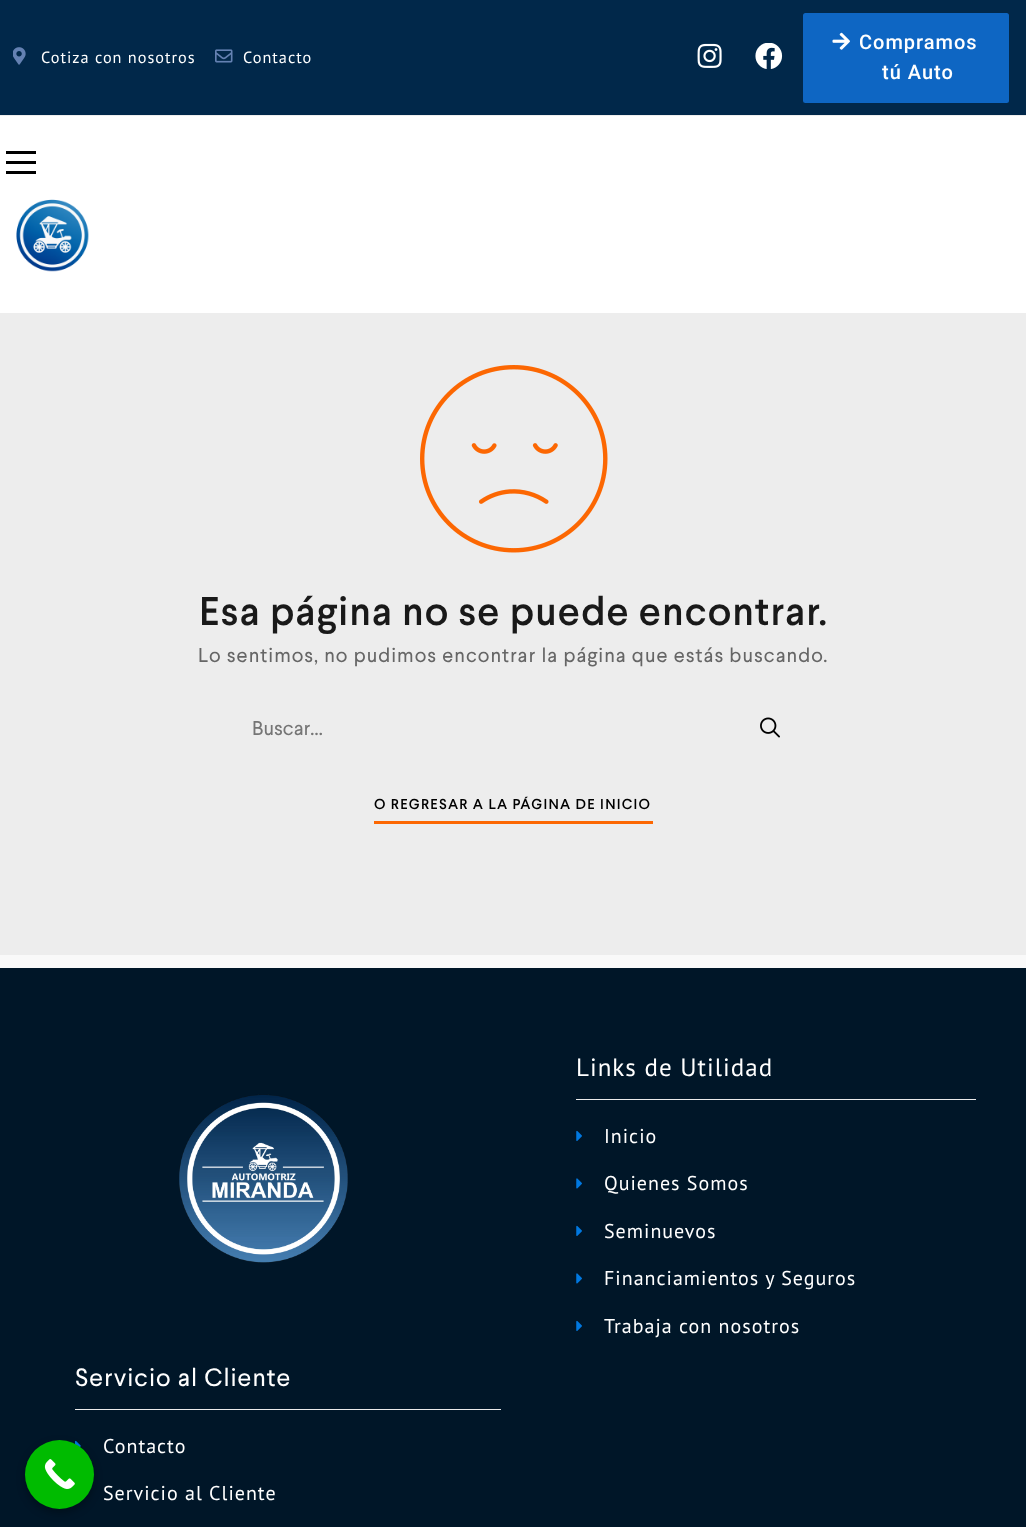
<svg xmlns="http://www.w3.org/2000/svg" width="1026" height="1527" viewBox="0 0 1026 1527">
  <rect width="100%" height="100%" fill="rgb(237,237,237)"/>
  <rect x="0" y="0" width="1026" height="115" fill="rgb(1,40,74)"/>
  <image x="13" y="47" width="13" height="18" href="pic1.png"/>
  <text x="41" y="63" font-family="PT Sans" font-size="16.25" letter-spacing="1" fill="rgb(255,255,255)">Cotiza con nosotros</text>
  <image x="215" y="49" width="18" height="14" href="pic2.png"/>
  <text x="243" y="63" font-family="PT Sans" font-size="16.25" letter-spacing="1" fill="rgb(255,255,255)">Contacto</text>
  <image x="697" y="43" width="25" height="25" href="pic3.png"/>
  <image x="755" y="43" width="28" height="26" href="pic4.png"/>
  <rect x="803" y="13" width="206" height="90" rx="2.5" fill="rgb(14,102,195)"/>
  <image x="832" y="32" width="18" height="18" href="pic5.png"/>
  <g font-family="Roboto" font-size="20" font-weight="500" letter-spacing="1" fill="rgb(255,255,255)">
    <text x="859" y="49">Compramos</text>
    <text x="882" y="79">tú Auto</text>
  </g>
  <rect x="0" y="116" width="1026" height="197" fill="rgb(255,255,255)"/>
  <rect x="6" y="161" width="30" height="3" fill="rgb(0,0,0)"/>
  <rect x="6" y="151" width="30" height="3" fill="rgb(0,0,0)"/>
  <rect x="6" y="171" width="30" height="3" fill="rgb(0,0,0)"/>
  <image x="16" y="199" width="73" height="73" href="pic6.png"/>
  <image x="420" y="365" width="188" height="188" href="pic7.png"/>
  <text x="199" y="625" font-family="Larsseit" font-size="40" font-weight="500" letter-spacing="1" fill="rgb(25,25,25)">Esa página no se puede encontrar.</text>
  <text x="198" y="662" font-family="Larsseit" font-size="20" letter-spacing="1" fill="rgb(102,102,102)">Lo sentimos, no pudimos encontrar la página que estás buscando.</text>
  <text x="252" y="735" font-family="Larsseit" font-size="20" fill="rgb(117,117,117)">Buscar…</text>
  <image x="760" y="717" width="20" height="21" href="pic8.png"/>
  <text x="374" y="809" font-family="Larsseit" font-size="14.4" font-weight="500" letter-spacing="1.25" fill="rgb(0,0,0)">O REGRESAR A LA PÁGINA DE INICIO</text>
  <rect x="374" y="821" width="279" height="3" fill="rgb(252,103,2)"/>
  <rect x="0" y="968" width="1026" height="559" fill="rgb(0,22,40)"/>
  <image x="75" y="1440" width="6" height="7" href="pic13.png"/>
  <rect x="25" y="1444" width="69" height="69" rx="34.5" fill="rgba(0,0,0,0.3)" filter="blur(4px)"/>
  <circle cx="59.5" cy="1474.5" r="34.5" fill="rgb(0,187,0)"/>
  <image x="44" y="1459" width="31" height="30" href="pic9.png"/>
  <rect x="0" y="955" width="1026" height="13" fill="rgb(249,249,249)"/>
  <image x="179" y="1094" width="169" height="169" href="pic10.png"/>
  <rect x="576" y="1099" width="400" height="1" fill="rgb(235,235,235)"/>
  <text x="576" y="1076" font-family="PT Sans" font-size="25" letter-spacing="1" fill="rgb(255,255,255)">Links de Utilidad</text>
  <image x="576" y="1130" width="6" height="11" href="pic11.png"/>
  <text x="604" y="1143" font-family="PT Sans" font-size="20" letter-spacing="1" fill="rgb(255,255,255)">Inicio</text>
  <image x="576" y="1178" width="6" height="11" href="pic12.png"/>
  <text x="604" y="1190" font-family="PT Sans" font-size="20" letter-spacing="1" fill="rgb(255,255,255)">Quienes Somos</text>
  <image x="576" y="1225" width="6" height="11" href="pic11.png"/>
  <text x="604" y="1238" font-family="PT Sans" font-size="20" letter-spacing="1" fill="rgb(255,255,255)">Seminuevos</text>
  <image x="576" y="1273" width="6" height="11" href="pic12.png"/>
  <text x="604" y="1285" font-family="PT Sans" font-size="20" letter-spacing="1" fill="rgb(255,255,255)">Financiamientos y Seguros</text>
  <image x="576" y="1320" width="6" height="11" href="pic11.png"/>
  <text x="604" y="1333" font-family="PT Sans" font-size="20" letter-spacing="1" fill="rgb(255,255,255)">Trabaja con nosotros</text>
  <rect x="75" y="1409" width="426" height="1" fill="rgb(235,235,235)"/>
  <text x="75" y="1386" font-family="Larsseit" font-size="25" letter-spacing="1" fill="rgb(255,255,255)">Servicio al Cliente</text>
  <g font-family="PT Sans" font-size="20" letter-spacing="1" fill="rgb(255,255,255)">
    <text x="103" y="1453">Contacto</text>
    <text x="103" y="1500">Servicio al Cliente</text>
  </g>
</svg>
